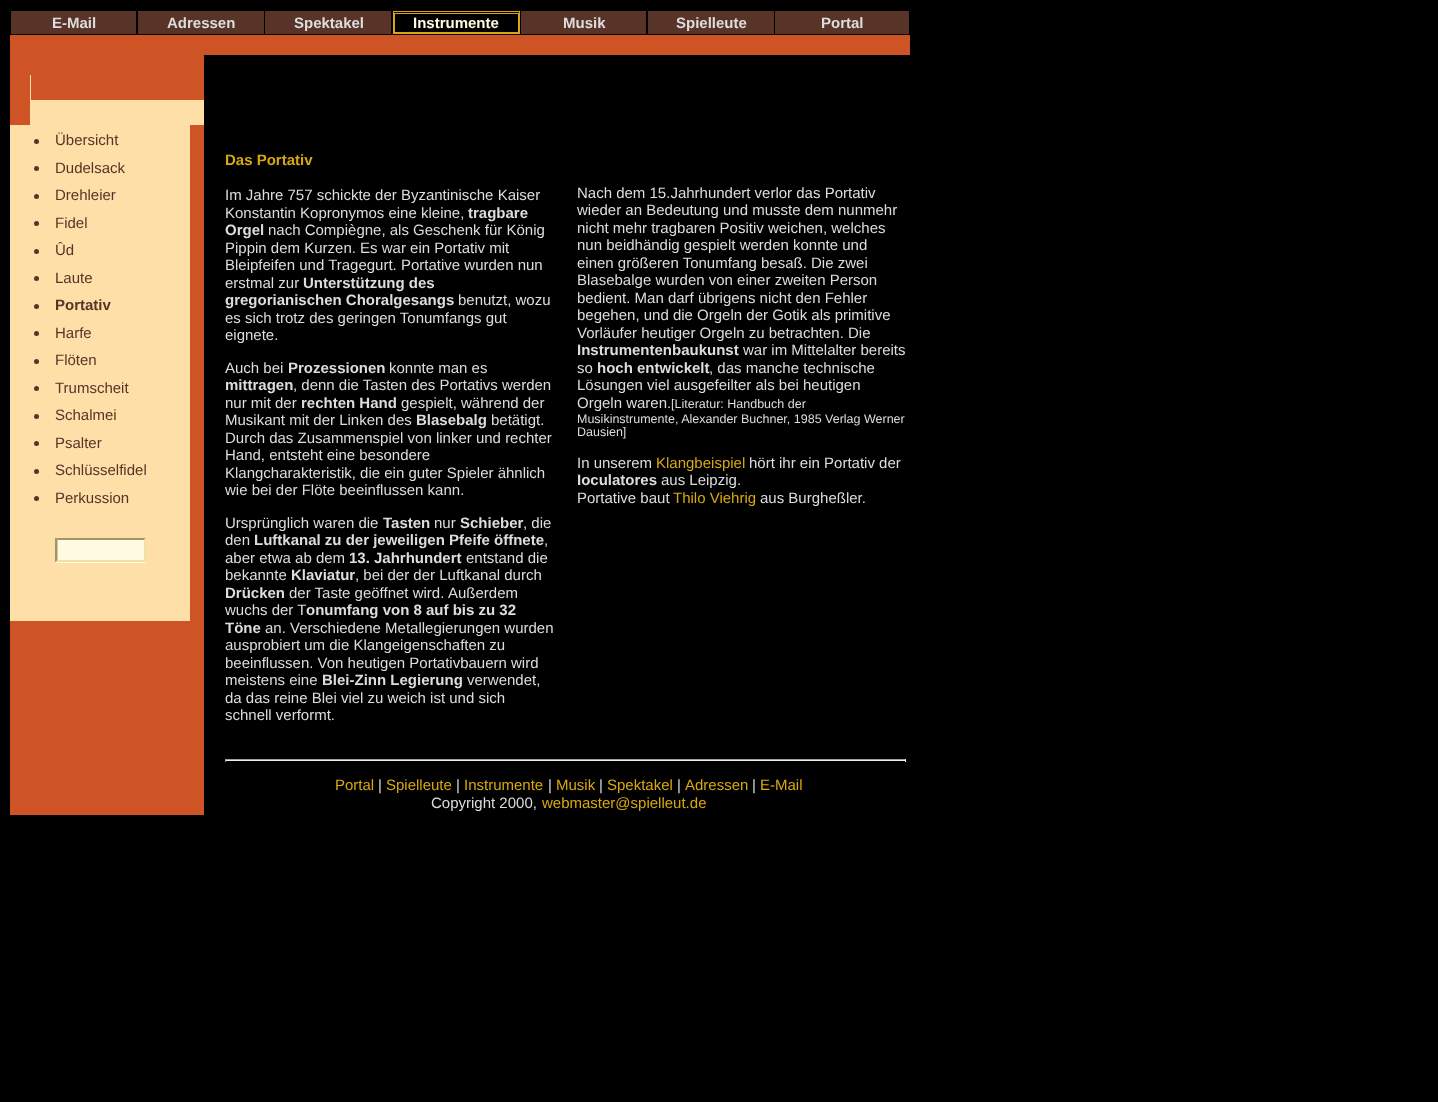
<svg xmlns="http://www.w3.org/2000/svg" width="1438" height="1102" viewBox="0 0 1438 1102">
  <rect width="100%" height="100%" fill="rgb(0,0,0)"/>
  <rect x="11" y="11" width="125" height="23" fill="rgb(88,52,40)"/>
  <text x="52" y="28" font-family="Liberation Sans" font-size="15" font-weight="bold" fill="rgb(221,221,221)">E-Mail</text>
  <rect x="138" y="11" width="126" height="23" fill="rgb(88,52,40)"/>
  <text x="167" y="28" font-family="Liberation Sans" font-size="15" font-weight="bold" fill="rgb(221,221,221)">Adressen</text>
  <rect x="265" y="11" width="126" height="23" fill="rgb(88,52,40)"/>
  <text x="294" y="28" font-family="Liberation Sans" font-size="15" font-weight="bold" fill="rgb(221,221,221)">Spektakel</text>
  <rect x="393.5" y="11.5" width="126" height="22" fill="none" stroke="rgb(216,168,16)"/>
  <rect x="394.5" y="13.5" width="124" height="19" fill="none" stroke="rgb(216,168,16)"/>
  <text x="413" y="28" font-family="Liberation Sans" font-size="15" font-weight="bold" fill="rgb(255,251,225)">Instrumente</text>
  <rect x="521" y="11" width="125" height="23" fill="rgb(88,52,40)"/>
  <text x="563" y="28" font-family="Liberation Sans" font-size="15" font-weight="bold" fill="rgb(221,221,221)">Musik</text>
  <rect x="648" y="11" width="126" height="23" fill="rgb(88,52,40)"/>
  <text x="676" y="28" font-family="Liberation Sans" font-size="15" font-weight="bold" fill="rgb(221,221,221)">Spielleute</text>
  <rect x="775" y="11" width="134" height="23" fill="rgb(88,52,40)"/>
  <text x="821" y="28" font-family="Liberation Sans" font-size="15" font-weight="bold" fill="rgb(221,221,221)">Portal</text>
  <rect x="10" y="35" width="900" height="20" fill="rgb(206,84,37)"/>
  <rect x="10" y="55" width="194" height="20" fill="rgb(206,84,37)"/>
  <rect x="10" y="75" width="20" height="50" fill="rgb(206,84,37)"/>
  <rect x="30" y="75" width="174" height="50" fill="rgb(253,223,167)"/>
  <rect x="31" y="75" width="173" height="25" fill="rgb(206,84,37)"/>
  <rect x="10" y="621" width="194" height="194" fill="rgb(206,84,37)"/>
  <rect x="10" y="125" width="180" height="496" fill="rgb(253,223,167)"/>
  <circle cx="36.5" cy="141.5" r="2.5" fill="rgb(88,52,40)"/>
  <text x="55" y="145" font-family="Liberation Sans" font-size="15" fill="rgb(88,52,40)">Übersicht</text>
  <circle cx="36.5" cy="168.5" r="2.5" fill="rgb(88,52,40)"/>
  <text x="55" y="173" font-family="Liberation Sans" font-size="15" fill="rgb(88,52,40)">Dudelsack</text>
  <circle cx="36.5" cy="196.5" r="2.5" fill="rgb(88,52,40)"/>
  <text x="55" y="200" font-family="Liberation Sans" font-size="15" fill="rgb(88,52,40)">Drehleier</text>
  <circle cx="36.5" cy="223.5" r="2.5" fill="rgb(88,52,40)"/>
  <text x="55" y="228" font-family="Liberation Sans" font-size="15" fill="rgb(88,52,40)">Fidel</text>
  <circle cx="36.5" cy="251.5" r="2.5" fill="rgb(88,52,40)"/>
  <text x="55" y="255" font-family="Liberation Sans" font-size="15" fill="rgb(88,52,40)">Ûd</text>
  <circle cx="36.5" cy="278.5" r="2.5" fill="rgb(88,52,40)"/>
  <text x="55" y="283" font-family="Liberation Sans" font-size="15" fill="rgb(88,52,40)">Laute</text>
  <circle cx="36.5" cy="306.5" r="2.5" fill="rgb(88,52,40)"/>
  <text x="55" y="310" font-family="Liberation Sans" font-size="15" font-weight="bold" fill="rgb(88,52,40)">Portativ</text>
  <circle cx="36.5" cy="333.5" r="2.5" fill="rgb(88,52,40)"/>
  <text x="55" y="338" font-family="Liberation Sans" font-size="15" fill="rgb(88,52,40)">Harfe</text>
  <circle cx="36.5" cy="361.5" r="2.5" fill="rgb(88,52,40)"/>
  <text x="55" y="365" font-family="Liberation Sans" font-size="15" fill="rgb(88,52,40)">Flöten</text>
  <circle cx="36.5" cy="388.5" r="2.5" fill="rgb(88,52,40)"/>
  <text x="55" y="393" font-family="Liberation Sans" font-size="15" fill="rgb(88,52,40)">Trumscheit</text>
  <circle cx="36.5" cy="416.5" r="2.5" fill="rgb(88,52,40)"/>
  <text x="55" y="420" font-family="Liberation Sans" font-size="15" fill="rgb(88,52,40)">Schalmei</text>
  <circle cx="36.5" cy="443.5" r="2.5" fill="rgb(88,52,40)"/>
  <text x="55" y="448" font-family="Liberation Sans" font-size="15" fill="rgb(88,52,40)">Psalter</text>
  <circle cx="36.5" cy="471.5" r="2.5" fill="rgb(88,52,40)"/>
  <text x="55" y="475" font-family="Liberation Sans" font-size="15" fill="rgb(88,52,40)">Schlüsselfidel</text>
  <circle cx="36.5" cy="498.5" r="2.5" fill="rgb(88,52,40)"/>
  <text x="55" y="503" font-family="Liberation Sans" font-size="15" fill="rgb(88,52,40)">Perkussion</text>
  <rect x="55" y="538" width="91" height="25" fill="rgb(255,251,225)"/>
  <path d="M55 538H146L144 540H58Z" fill="rgb(160,149,111)"/>
  <path d="M146 537.5V562.5L144 560V540Z" fill="rgb(240,223,167)"/>
  <path d="M146 562H55L58 560H144Z" fill="rgb(240,223,167)"/>
  <path d="M55 562.5V537.5L57.5 540V560Z" fill="rgb(160,149,111)"/>
  <rect x="190" y="125" width="14" height="496" fill="rgb(206,84,37)"/>
  <text x="225" y="165" font-family="Liberation Sans" font-size="15" font-weight="bold" fill="rgb(216,168,16)">Das Portativ</text>
  <g font-family="Liberation Sans" font-size="15" fill="rgb(221,221,221)">
    <text>
      <tspan x="225" y="200">Im Jahre 757 schickte der Byzantinische Kaiser</tspan>
      <tspan x="225" y="218">Konstantin Kopronymos eine kleine,</tspan>
    </text>
  </g>
  <g font-family="Liberation Sans" font-size="15" font-weight="bold" fill="rgb(221,221,221)">
    <text x="468" y="218">tragbare</text>
    <text x="225" y="235">Orgel</text>
  </g>
  <g font-family="Liberation Sans" font-size="15" fill="rgb(221,221,221)">
    <text x="268" y="235">nach Compiègne, als Geschenk für König</text>
    <text>
      <tspan x="225" y="253">Pippin dem Kurzen. Es war ein Portativ mit</tspan>
      <tspan x="225" y="270">Bleipfeifen und Tragegurt. Portative wurden nun</tspan>
      <tspan x="225" y="288">erstmal zur</tspan>
    </text>
  </g>
  <g font-family="Liberation Sans" font-size="15" font-weight="bold" fill="rgb(221,221,221)">
    <text x="303" y="288">Unterstützung des</text>
    <text x="225" y="305">gregorianischen Choralgesangs</text>
  </g>
  <g font-family="Liberation Sans" font-size="15" fill="rgb(221,221,221)">
    <text x="458" y="305">benutzt, wozu</text>
    <text>
      <tspan x="225" y="323">es sich trotz des geringen Tonumfangs gut</tspan>
      <tspan x="225" y="340">eignete.</tspan>
    </text>
    <text x="225" y="373">Auch bei</text>
  </g>
  <text x="288" y="373" font-family="Liberation Sans" font-size="15" font-weight="bold" fill="rgb(221,221,221)">Prozessionen</text>
  <text x="389" y="373" font-family="Liberation Sans" font-size="15" fill="rgb(221,221,221)">konnte man es</text>
  <text x="225" y="390" font-family="Liberation Sans" font-size="15" font-weight="bold" fill="rgb(221,221,221)">mittragen</text>
  <g font-family="Liberation Sans" font-size="15" fill="rgb(221,221,221)">
    <text x="293" y="390">, denn die Tasten des Portativs werden</text>
    <text x="225" y="408">nur mit der</text>
  </g>
  <text x="301" y="408" font-family="Liberation Sans" font-size="15" font-weight="bold" fill="rgb(221,221,221)">rechten Hand</text>
  <g font-family="Liberation Sans" font-size="15" fill="rgb(221,221,221)">
    <text x="401" y="408">gespielt, während der</text>
    <text x="225" y="425">Musikant mit der Linken des</text>
  </g>
  <text x="416" y="425" font-family="Liberation Sans" font-size="15" font-weight="bold" fill="rgb(221,221,221)">Blasebalg</text>
  <g font-family="Liberation Sans" font-size="15" fill="rgb(221,221,221)">
    <text x="491" y="425">betätigt.</text>
    <text>
      <tspan x="225" y="443">Durch das Zusammenspiel von linker und rechter</tspan>
      <tspan x="225" y="460">Hand, entsteht eine besondere</tspan>
      <tspan x="225" y="478">Klangcharakteristik, die ein guter Spieler ähnlich</tspan>
      <tspan x="225" y="495">wie bei der Flöte beeinflussen kann.</tspan>
    </text>
    <text x="225" y="528">Ursprünglich waren die</text>
  </g>
  <text x="383" y="528" font-family="Liberation Sans" font-size="15" font-weight="bold" fill="rgb(221,221,221)">Tasten</text>
  <text x="434" y="528" font-family="Liberation Sans" font-size="15" fill="rgb(221,221,221)">nur</text>
  <text x="460" y="528" font-family="Liberation Sans" font-size="15" font-weight="bold" fill="rgb(221,221,221)">Schieber</text>
  <g font-family="Liberation Sans" font-size="15" fill="rgb(221,221,221)">
    <text x="523" y="528">, die</text>
    <text x="225" y="545">den</text>
  </g>
  <text x="254" y="545" font-family="Liberation Sans" font-size="15" font-weight="bold" fill="rgb(221,221,221)">Luftkanal zu der jeweiligen Pfeife öffnete</text>
  <g font-family="Liberation Sans" font-size="15" fill="rgb(221,221,221)">
    <text x="544" y="545">,</text>
    <text x="225" y="563">aber etwa ab dem</text>
  </g>
  <text x="349" y="563" font-family="Liberation Sans" font-size="15" font-weight="bold" fill="rgb(221,221,221)">13. Jahrhundert</text>
  <g font-family="Liberation Sans" font-size="15" fill="rgb(221,221,221)">
    <text x="466" y="563">entstand die</text>
    <text x="225" y="580">bekannte</text>
  </g>
  <text x="291" y="580" font-family="Liberation Sans" font-size="15" font-weight="bold" fill="rgb(221,221,221)">Klaviatur</text>
  <text x="355" y="580" font-family="Liberation Sans" font-size="15" fill="rgb(221,221,221)">, bei der der Luftkanal durch</text>
  <text x="225" y="598" font-family="Liberation Sans" font-size="15" font-weight="bold" fill="rgb(221,221,221)">Drücken</text>
  <g font-family="Liberation Sans" font-size="15" fill="rgb(221,221,221)">
    <text x="289" y="598">der Taste geöffnet wird.</text>
    <text x="448" y="598">Außerdem</text>
    <text x="225" y="615">wuchs der T</text>
  </g>
  <g font-family="Liberation Sans" font-size="15" font-weight="bold" fill="rgb(221,221,221)">
    <text x="306" y="615">onumfang von 8 auf bis zu 32</text>
    <text x="225" y="633">Töne</text>
  </g>
  <g font-family="Liberation Sans" font-size="15" fill="rgb(221,221,221)">
    <text x="265" y="633">an. Verschiedene Metallegierungen wurden</text>
    <text>
      <tspan x="225" y="650">ausprobiert um die Klangeigenschaften zu</tspan>
      <tspan x="225" y="668">beeinflussen. Von heutigen Portativbauern wird</tspan>
      <tspan x="225" y="685">meistens eine</tspan>
    </text>
  </g>
  <text x="322" y="685" font-family="Liberation Sans" font-size="15" font-weight="bold" fill="rgb(221,221,221)">Blei-Zinn Legierung</text>
  <g font-family="Liberation Sans" font-size="15" fill="rgb(221,221,221)">
    <text x="467" y="685">verwendet,</text>
    <text>
      <tspan x="225" y="703">da das reine Blei viel zu weich ist und sich</tspan>
      <tspan x="225" y="720">schnell verformt.</tspan>
    </text>
    <text>
      <tspan x="577" y="198">Nach dem 15.Jahrhundert verlor das Portativ</tspan>
      <tspan x="577" y="215">wieder an Bedeutung und musste dem nunmehr</tspan>
      <tspan x="577" y="233">nicht mehr tragbaren Positiv weichen, welches</tspan>
      <tspan x="577" y="250">nun beidhändig gespielt werden konnte und</tspan>
      <tspan x="577" y="268">einen größeren Tonumfang besaß. Die zwei</tspan>
      <tspan x="577" y="285">Blasebalge wurden von einer zweiten Person</tspan>
      <tspan x="577" y="303">bedient. Man darf übrigens nicht den Fehler</tspan>
      <tspan x="577" y="320">begehen, und die Orgeln der Gotik als primitive</tspan>
      <tspan x="577" y="338">Vorläufer heutiger Orgeln zu betrachten. Die</tspan>
    </text>
  </g>
  <text x="577" y="355" font-family="Liberation Sans" font-size="15" font-weight="bold" fill="rgb(221,221,221)">Instrumentenbaukunst</text>
  <g font-family="Liberation Sans" font-size="15" fill="rgb(221,221,221)">
    <text x="743" y="355">war im Mittelalter bereits</text>
    <text x="577" y="373">so</text>
  </g>
  <text x="597" y="373" font-family="Liberation Sans" font-size="15" font-weight="bold" fill="rgb(221,221,221)">hoch entwickelt</text>
  <g font-family="Liberation Sans" font-size="15" fill="rgb(221,221,221)">
    <text x="709" y="373">, das manche technische</text>
    <text>
      <tspan x="577" y="390">Lösungen viel ausgefeilter als bei heutigen</tspan>
      <tspan x="577" y="408">Orgeln waren.</tspan>
    </text>
  </g>
  <g font-family="Liberation Sans" font-size="12.5" fill="rgb(221,221,221)">
    <text x="671" y="408">[Literatur: Handbuch der</text>
    <text>
      <tspan x="577" y="423">Musikinstrumente, Alexander Buchner, 1985 Verlag Werner</tspan>
      <tspan x="577" y="436">Dausien]</tspan>
    </text>
  </g>
  <text x="577" y="468" font-family="Liberation Sans" font-size="15" fill="rgb(221,221,221)">In unserem</text>
  <text x="656" y="468" font-family="Liberation Sans" font-size="15" fill="rgb(216,168,16)">Klangbeispiel</text>
  <text x="749" y="468" font-family="Liberation Sans" font-size="15" fill="rgb(221,221,221)">hört ihr ein Portativ der</text>
  <text x="577" y="485" font-family="Liberation Sans" font-size="15" font-weight="bold" fill="rgb(221,221,221)">Ioculatores</text>
  <g font-family="Liberation Sans" font-size="15" fill="rgb(221,221,221)">
    <text x="661" y="485">aus Leipzig.</text>
    <text x="577" y="503">Portative baut</text>
  </g>
  <text x="673" y="503" font-family="Liberation Sans" font-size="15" fill="rgb(216,168,16)">Thilo Viehrig</text>
  <text x="760" y="503" font-family="Liberation Sans" font-size="15" fill="rgb(221,221,221)">aus Burgheßler.</text>
  <rect x="225" y="759" width="681" height="1" fill="rgb(159,159,159)"/>
  <rect x="905" y="759" width="1" height="3" fill="rgb(238,238,238)"/>
  <rect x="225" y="760" width="681" height="1" fill="rgb(238,238,238)"/>
  <rect x="225" y="759" width="1" height="3" fill="rgb(159,159,159)"/>
  <text x="335" y="790" font-family="Liberation Sans" font-size="15" fill="rgb(216,168,16)">Portal</text>
  <text x="378" y="790" font-family="Liberation Sans" font-size="15" fill="rgb(221,221,221)">|</text>
  <text x="386" y="790" font-family="Liberation Sans" font-size="15" fill="rgb(216,168,16)">Spielleute</text>
  <text x="456" y="790" font-family="Liberation Sans" font-size="15" fill="rgb(221,221,221)">|</text>
  <text x="464" y="790" font-family="Liberation Sans" font-size="15" fill="rgb(216,168,16)">Instrumente</text>
  <text x="548" y="790" font-family="Liberation Sans" font-size="15" fill="rgb(221,221,221)">|</text>
  <text x="556" y="790" font-family="Liberation Sans" font-size="15" fill="rgb(216,168,16)">Musik</text>
  <text x="599" y="790" font-family="Liberation Sans" font-size="15" fill="rgb(221,221,221)">|</text>
  <text x="607" y="790" font-family="Liberation Sans" font-size="15" fill="rgb(216,168,16)">Spektakel</text>
  <text x="677" y="790" font-family="Liberation Sans" font-size="15" fill="rgb(221,221,221)">|</text>
  <text x="685" y="790" font-family="Liberation Sans" font-size="15" fill="rgb(216,168,16)">Adressen</text>
  <text x="752" y="790" font-family="Liberation Sans" font-size="15" fill="rgb(221,221,221)">|</text>
  <text x="760" y="790" font-family="Liberation Sans" font-size="15" fill="rgb(216,168,16)">E-Mail</text>
  <text x="431" y="808" font-family="Liberation Sans" font-size="15" fill="rgb(221,221,221)">Copyright 2000,</text>
  <text x="542" y="808" font-family="Liberation Sans" font-size="15" fill="rgb(216,168,16)">webmaster@spielleut.de</text>
</svg>
